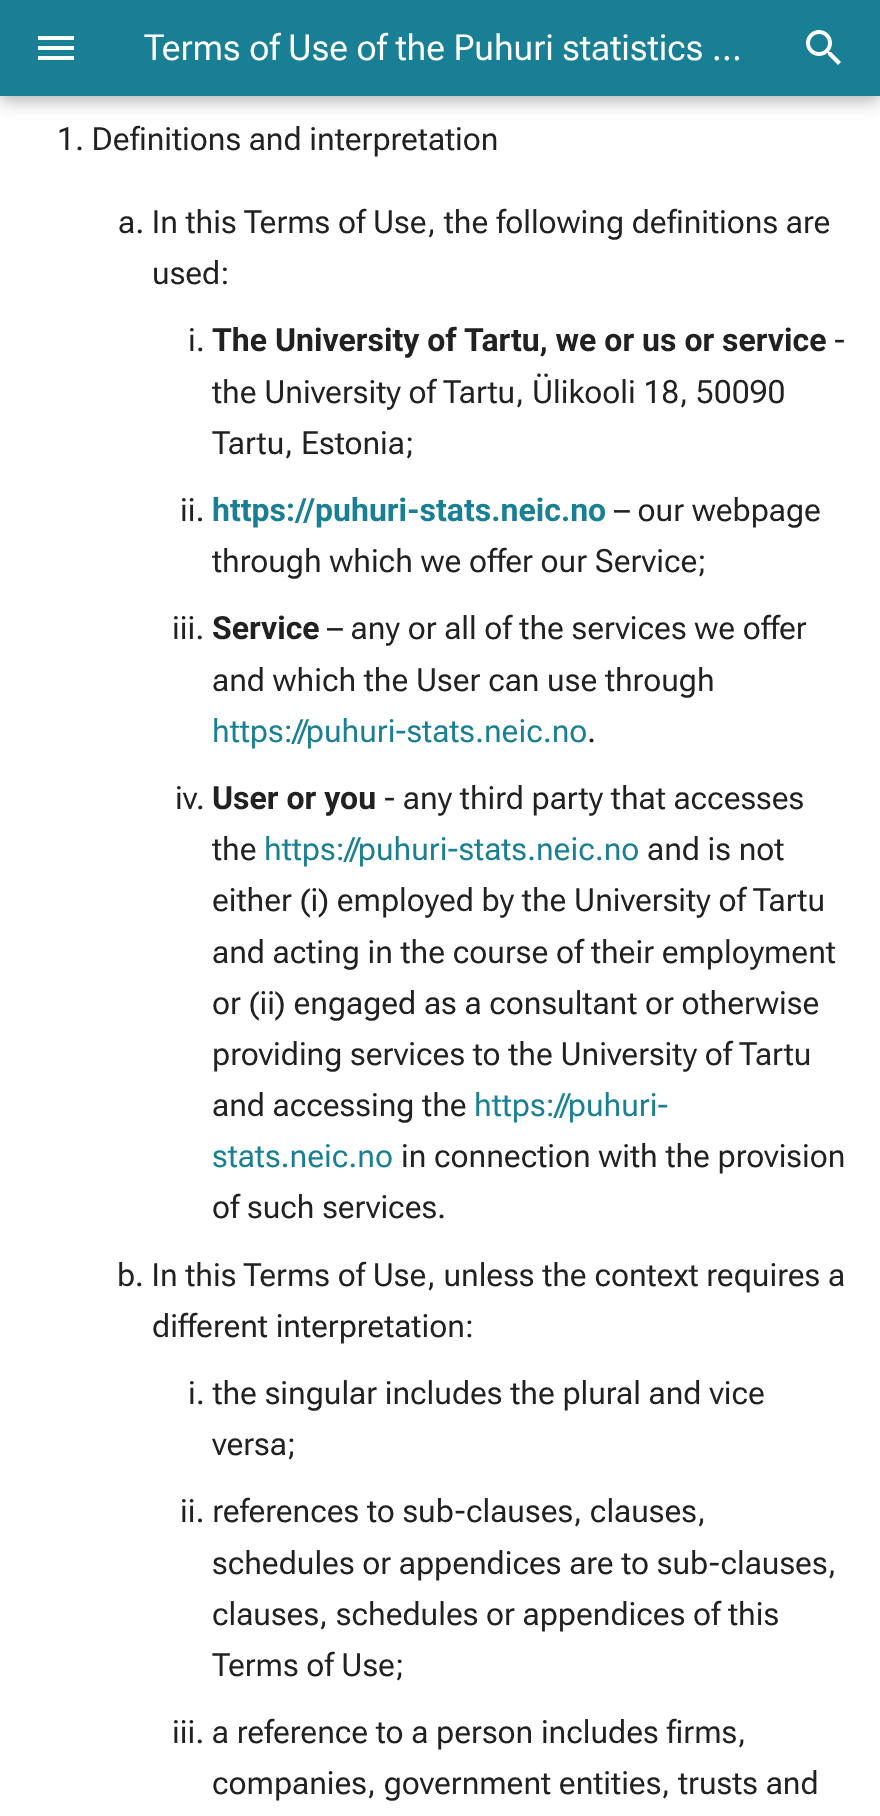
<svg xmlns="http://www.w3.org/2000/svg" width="880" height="1816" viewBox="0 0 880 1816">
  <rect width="100%" height="100%" fill="rgb(255,255,255)"/>
  <rect x="0" y="8" width="880" height="96" fill="rgba(0,0,0,0.2)" filter="blur(8px)"/>
  <rect x="0" y="0" width="880" height="96" fill="rgba(0,0,0,0.1)" filter="blur(4px)"/>
  <rect x="0" y="0" width="880" height="96" fill="rgb(25,127,148)"/>
  <path d="M38 36H74V40H38ZM38 46H74V50H38ZM38 56H74V60H38Z" fill="rgb(255,255,255)"/>
  <text x="144" y="60" font-family="'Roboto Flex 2'" font-size="36" fill="rgb(255,255,255)">Terms of Use of the Puhuri statistics …</text>
  <image x="806" y="30" width="35" height="35" href="pic1.png"/>
  <g font-family="Roboto Flex" font-size="32" fill="rgb(33,33,33)">
    <text x="57" y="150">1. Definitions and interpretation</text>
    <text x="118" y="233">a. In this Terms of Use, the following definitions are</text>
    <text x="152" y="284">used:</text>
    <text x="188" y="351">i.</text>
  </g>
  <text x="212" y="351" font-family="Roboto" font-size="32" font-weight="bold" fill="rgb(33,33,33)">The University of Tartu, we or us or service</text>
  <g font-family="Roboto Flex" font-size="32" fill="rgb(33,33,33)">
    <text x="834" y="351">-</text>
    <text>
      <tspan x="212" y="403">the University of Tartu, Ülikooli 18, 50090</tspan>
      <tspan x="212" y="454">Tartu, Estonia;</tspan>
    </text>
    <text x="180" y="521">ii.</text>
  </g>
  <text x="212" y="521" font-family="Roboto" font-size="32" font-weight="bold" fill="rgb(25,127,148)">https://puhuri-stats.neic.no</text>
  <g font-family="Roboto Flex" font-size="32" fill="rgb(33,33,33)">
    <text x="614" y="521">– our webpage</text>
    <text x="212" y="572">through which we offer our Service;</text>
    <text x="172" y="639">iii.</text>
  </g>
  <text x="212" y="639" font-family="Roboto" font-size="32" font-weight="bold" fill="rgb(33,33,33)">Service</text>
  <g font-family="Roboto Flex" font-size="32" fill="rgb(33,33,33)">
    <text x="327" y="639">– any or all of the services we offer</text>
    <text x="212" y="691">and which the User can use through</text>
  </g>
  <text x="212" y="742" font-family="Roboto Flex" font-size="32" fill="rgb(25,127,148)">https://puhuri-stats.neic.no</text>
  <g font-family="Roboto Flex" font-size="32" fill="rgb(33,33,33)">
    <text x="587" y="742">.</text>
    <text x="175" y="809">iv.</text>
  </g>
  <text x="212" y="809" font-family="Roboto" font-size="32" font-weight="bold" fill="rgb(33,33,33)">User or you</text>
  <g font-family="Roboto Flex" font-size="32" fill="rgb(33,33,33)">
    <text x="384" y="809">- any third party that accesses</text>
    <text x="212" y="860">the</text>
  </g>
  <text x="264" y="860" font-family="Roboto Flex" font-size="32" fill="rgb(25,127,148)">https://puhuri-stats.neic.no</text>
  <g font-family="Roboto Flex" font-size="32" fill="rgb(33,33,33)">
    <text x="647" y="860">and is not</text>
    <text>
      <tspan x="212" y="911">either (i) employed by the University of Tartu</tspan>
      <tspan x="212" y="963">and acting in the course of their employment</tspan>
      <tspan x="212" y="1014">or (ii) engaged as a consultant or otherwise</tspan>
      <tspan x="212" y="1065">providing services to the University of Tartu</tspan>
      <tspan x="212" y="1116">and accessing the</tspan>
    </text>
  </g>
  <g font-family="Roboto Flex" font-size="32" fill="rgb(25,127,148)">
    <text x="474" y="1116">https://puhuri-</text>
    <text x="212" y="1167">stats.neic.no</text>
  </g>
  <g font-family="Roboto Flex" font-size="32" fill="rgb(33,33,33)">
    <text x="401" y="1167">in connection with the provision</text>
    <text x="212" y="1218">of such services.</text>
    <text x="117" y="1286">b. In this Terms of Use, unless the context requires a</text>
    <text x="152" y="1337">different interpretation:</text>
    <text x="188" y="1404">i. the singular includes the plural and vice</text>
    <text x="212" y="1455">versa;</text>
    <text x="180" y="1522">ii. references to sub-clauses, clauses,</text>
    <text>
      <tspan x="212" y="1574">schedules or appendices are to sub-clauses,</tspan>
      <tspan x="212" y="1625">clauses, schedules or appendices of this</tspan>
      <tspan x="212" y="1676">Terms of Use;</tspan>
    </text>
    <text x="172" y="1743">iii. a reference to a person includes firms,</text>
    <text x="212" y="1794">companies, government entities, trusts and</text>
  </g>
</svg>
